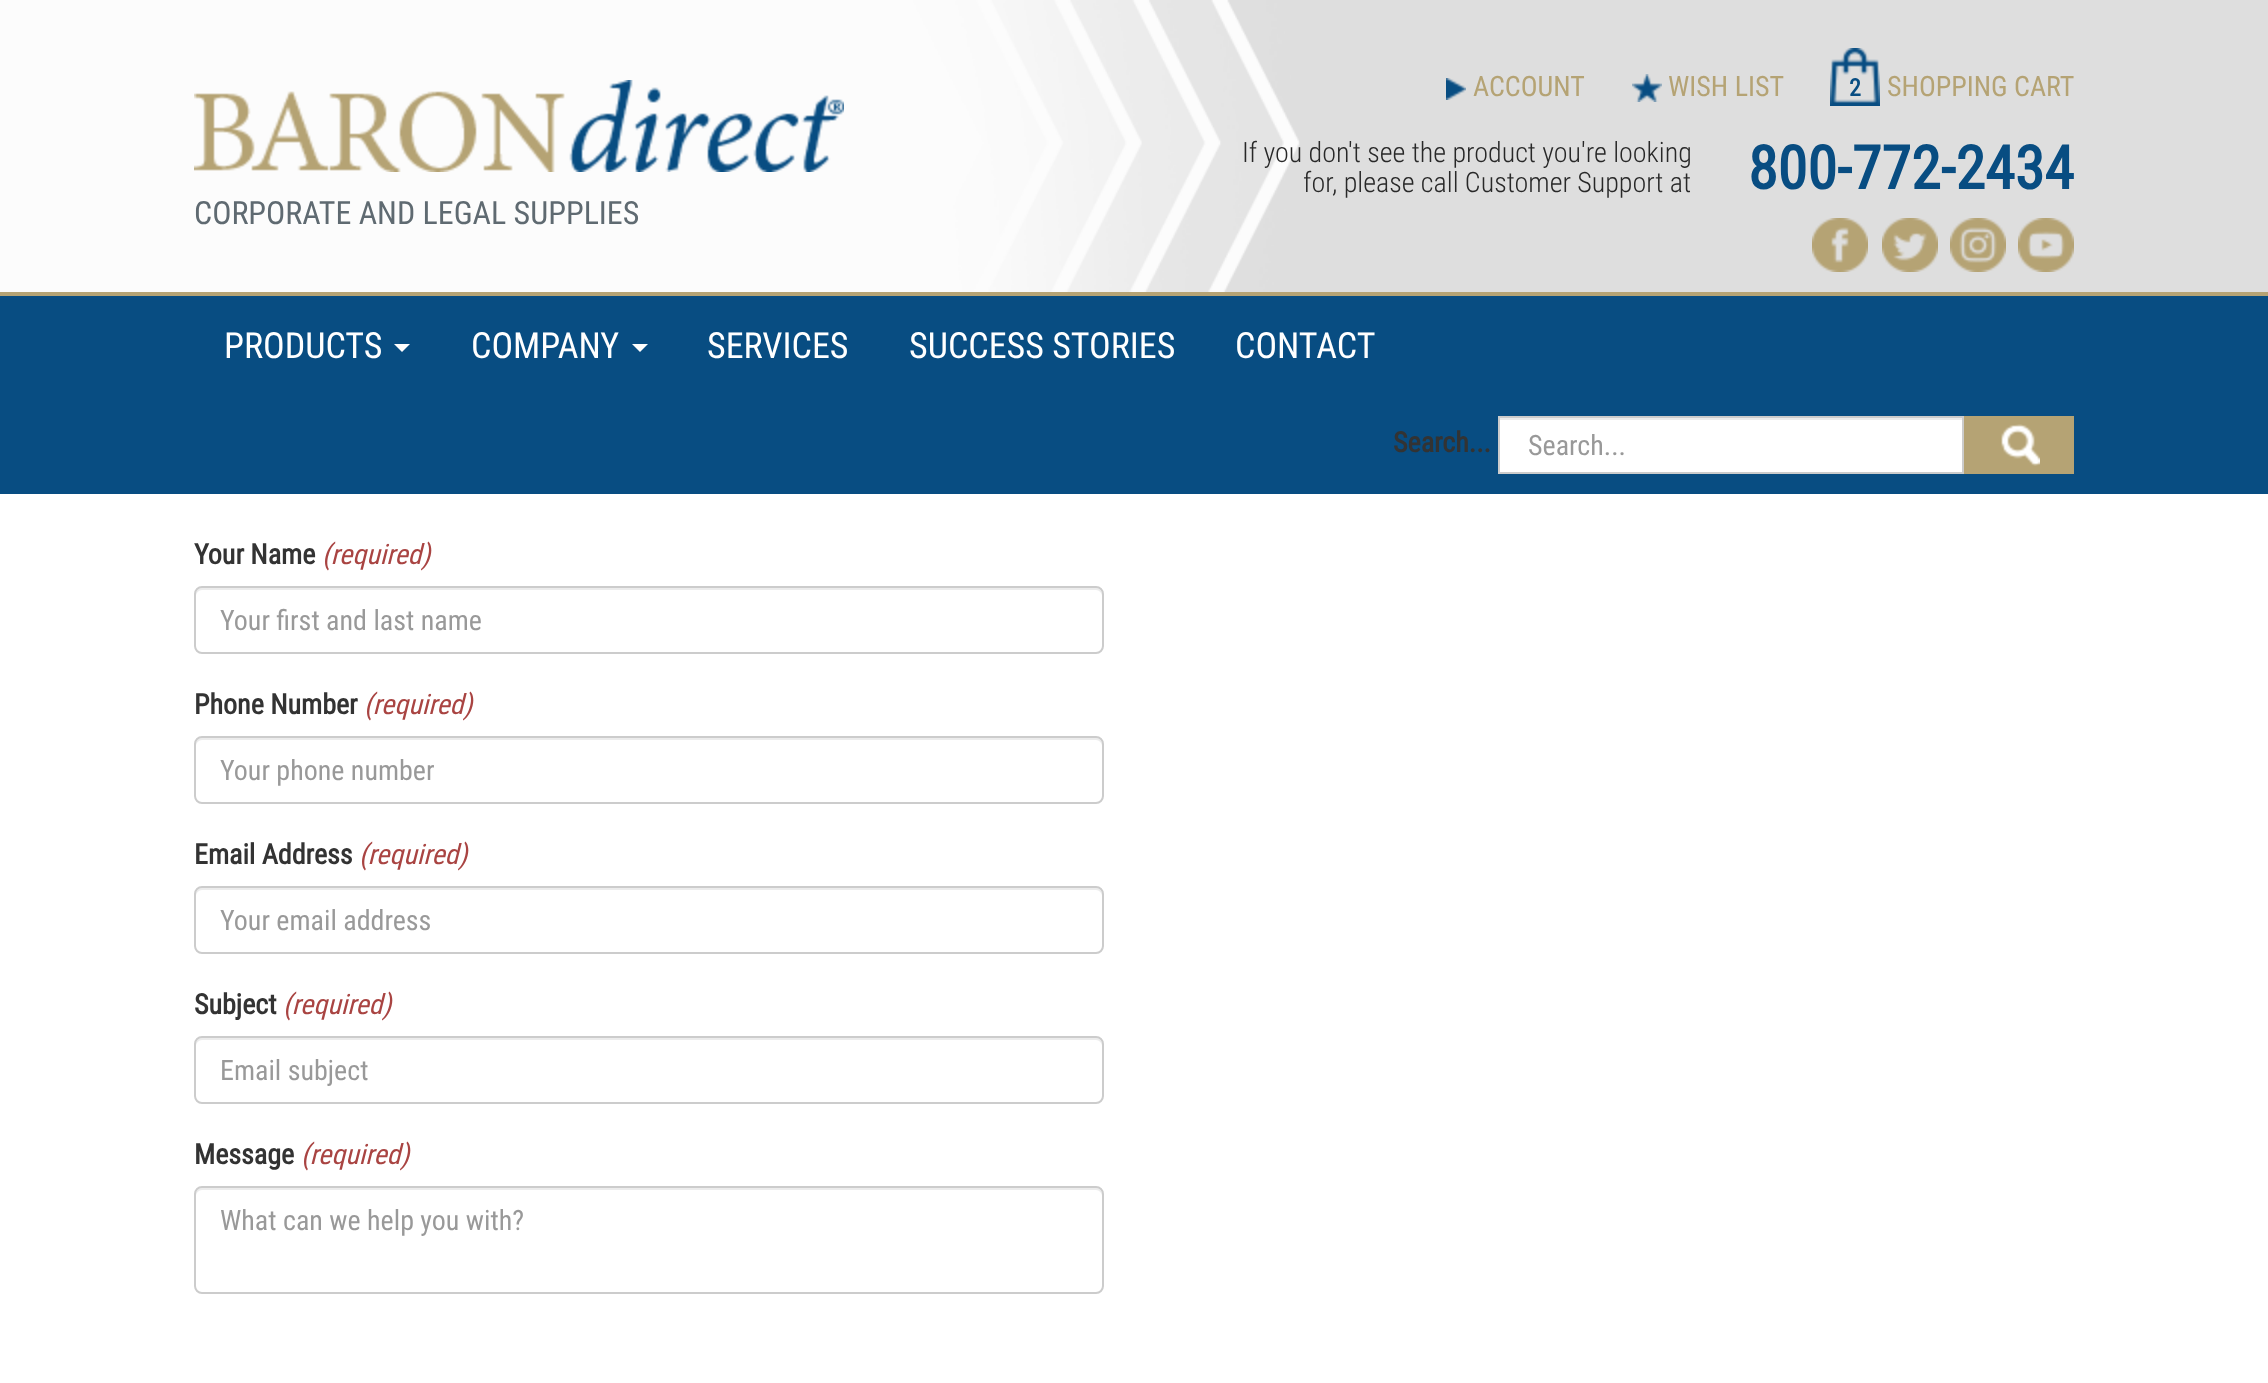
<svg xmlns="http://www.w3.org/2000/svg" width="2268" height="1383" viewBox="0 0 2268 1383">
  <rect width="100%" height="100%" fill="rgb(255,255,255)"/>
  <rect x="1300" y="0" width="968" height="292" fill="rgb(222,222,222)"/>
  <image x="0" y="0" width="1300" height="292" href="pic1.png"/>
  <image x="1446" y="78" width="20" height="22" href="pic2.png"/>
  <text x="1473" y="96" font-family="Roboto Condensed" font-size="28" fill="rgb(181,163,116)">ACCOUNT</text>
  <image x="1632" y="74" width="30" height="28" href="pic3.png"/>
  <text x="1668" y="96" font-family="Roboto Condensed" font-size="28" fill="rgb(181,163,116)">WISH LIST</text>
  <image x="1830" y="48" width="50" height="58" href="pic4.png"/>
  <text x="1849" y="96" font-family="Roboto Condensed" font-size="24" font-weight="bold" fill="rgb(8,77,130)">2</text>
  <text x="1887" y="96" font-family="Roboto Condensed" font-size="28" fill="rgb(181,163,116)">SHOPPING CART</text>
  <g font-family="Roboto Condensed" font-size="28" font-weight="300" fill="rgb(40,40,40)">
    <text x="1242" y="162">If you don't see the product you're looking</text>
    <text x="1303" y="192">for, please call Customer Support at</text>
  </g>
  <text x="1748" y="189" font-family="Roboto Condensed" font-size="60" font-weight="bold" fill="rgb(8,77,130)">800-772-2434</text>
  <image x="1812" y="218" width="56" height="54" href="pic5.png"/>
  <image x="1882" y="218" width="56" height="54" href="pic6.png"/>
  <image x="1950" y="218" width="56" height="54" href="pic7.png"/>
  <image x="2018" y="218" width="56" height="54" href="pic8.png"/>
  <image x="194" y="80" width="650" height="92" href="pic9.png"/>
  <text x="194" y="224" font-family="Roboto Condensed" font-size="32" fill="rgb(95,106,113)">CORPORATE AND LEGAL SUPPLIES</text>
  <rect x="0" y="296" width="2268" height="198" fill="rgb(8,77,130)"/>
  <rect x="0" y="292" width="2268" height="4" fill="rgb(181,163,116)"/>
  <text x="224" y="358" font-family="Roboto Condensed" font-size="36" fill="rgb(255,255,255)">PRODUCTS</text>
  <path d="M394 344H410L402 352Z" fill="rgb(255,255,255)"/>
  <text x="471" y="358" font-family="Roboto Condensed" font-size="36" fill="rgb(255,255,255)">COMPANY</text>
  <path d="M632 344H648L640 352Z" fill="rgb(255,255,255)"/>
  <g font-family="Roboto Condensed" font-size="36" fill="rgb(255,255,255)">
    <text x="707" y="358">SERVICES</text>
    <text x="909" y="358">SUCCESS STORIES</text>
    <text x="1235" y="358">CONTACT</text>
  </g>
  <text x="1393" y="452" font-family="Roboto Condensed" font-size="28" font-weight="bold" fill="rgb(51,51,51)">Search...</text>
  <rect x="1500" y="420" width="462" height="52" fill="rgb(255,255,255)"/>
  <rect x="1500" y="418" width="462" height="2" fill="rgb(236,236,236)"/>
  <rect x="1499" y="417" width="464" height="56" fill="none" stroke="rgb(204,204,204)" stroke-width="2"/>
  <text x="1528" y="455" font-family="Roboto Condensed" font-size="28" fill="rgb(153,153,153)">Search...</text>
  <rect x="1964" y="416" width="110" height="58" fill="rgb(181,163,116)"/>
  <image x="2001" y="424" width="39" height="42" href="pic10.png"/>
  <text x="194" y="564" font-family="Roboto Condensed" font-size="28" font-weight="bold" fill="rgb(51,51,51)">Your Name</text>
  <text x="322" y="564" font-family="Roboto Condensed" font-size="28" font-style="italic" fill="rgb(169,68,66)">(required)</text>
  <path d="M202 590H1096C1099 590 1102 593 1102 596V594C1102 591 1099 588 1096 588H202C199 588 196 591 196 594V596C196 593 199 590 202 590Z" fill="rgb(236,236,236)"/>
  <rect x="195" y="587" width="908" height="66" rx="7" fill="none" stroke="rgb(204,204,204)" stroke-width="2"/>
  <text x="220" y="630" font-family="Roboto Condensed" font-size="28" fill="rgb(153,153,153)">Your first and last name</text>
  <text x="194" y="714" font-family="Roboto Condensed" font-size="28" font-weight="bold" fill="rgb(51,51,51)">Phone Number</text>
  <text x="364" y="714" font-family="Roboto Condensed" font-size="28" font-style="italic" fill="rgb(169,68,66)">(required)</text>
  <path d="M202 740H1096C1099 740 1102 743 1102 746V744C1102 741 1099 738 1096 738H202C199 738 196 741 196 744V746C196 743 199 740 202 740Z" fill="rgb(236,236,236)"/>
  <rect x="195" y="737" width="908" height="66" rx="7" fill="none" stroke="rgb(204,204,204)" stroke-width="2"/>
  <text x="220" y="780" font-family="Roboto Condensed" font-size="28" fill="rgb(153,153,153)">Your phone number</text>
  <text x="194" y="864" font-family="Roboto Condensed" font-size="28" font-weight="bold" fill="rgb(51,51,51)">Email Address</text>
  <text x="359" y="864" font-family="Roboto Condensed" font-size="28" font-style="italic" fill="rgb(169,68,66)">(required)</text>
  <path d="M202 890H1096C1099 890 1102 893 1102 896V894C1102 891 1099 888 1096 888H202C199 888 196 891 196 894V896C196 893 199 890 202 890Z" fill="rgb(236,236,236)"/>
  <rect x="195" y="887" width="908" height="66" rx="7" fill="none" stroke="rgb(204,204,204)" stroke-width="2"/>
  <text x="220" y="930" font-family="Roboto Condensed" font-size="28" fill="rgb(153,153,153)">Your email address</text>
  <text x="194" y="1014" font-family="Roboto Condensed" font-size="28" font-weight="bold" fill="rgb(51,51,51)">Subject</text>
  <text x="283" y="1014" font-family="Roboto Condensed" font-size="28" font-style="italic" fill="rgb(169,68,66)">(required)</text>
  <path d="M202 1040H1096C1099 1040 1102 1043 1102 1046V1044C1102 1041 1099 1038 1096 1038H202C199 1038 196 1041 196 1044V1046C196 1043 199 1040 202 1040Z" fill="rgb(236,236,236)"/>
  <rect x="195" y="1037" width="908" height="66" rx="7" fill="none" stroke="rgb(204,204,204)" stroke-width="2"/>
  <text x="220" y="1080" font-family="Roboto Condensed" font-size="28" fill="rgb(153,153,153)">Email subject</text>
  <text x="194" y="1164" font-family="Roboto Condensed" font-size="28" font-weight="bold" fill="rgb(51,51,51)">Message</text>
  <text x="301" y="1164" font-family="Roboto Condensed" font-size="28" font-style="italic" fill="rgb(169,68,66)">(required)</text>
  <path d="M202 1190H1096C1099 1190 1102 1193 1102 1196V1194C1102 1191 1099 1188 1096 1188H202C199 1188 196 1191 196 1194V1196C196 1193 199 1190 202 1190Z" fill="rgb(236,236,236)"/>
  <rect x="195" y="1187" width="908" height="106" rx="7" fill="none" stroke="rgb(204,204,204)" stroke-width="2"/>
  <text x="220" y="1230" font-family="Roboto Condensed" font-size="28" fill="rgb(153,153,153)">What can we help you with?</text>
</svg>
